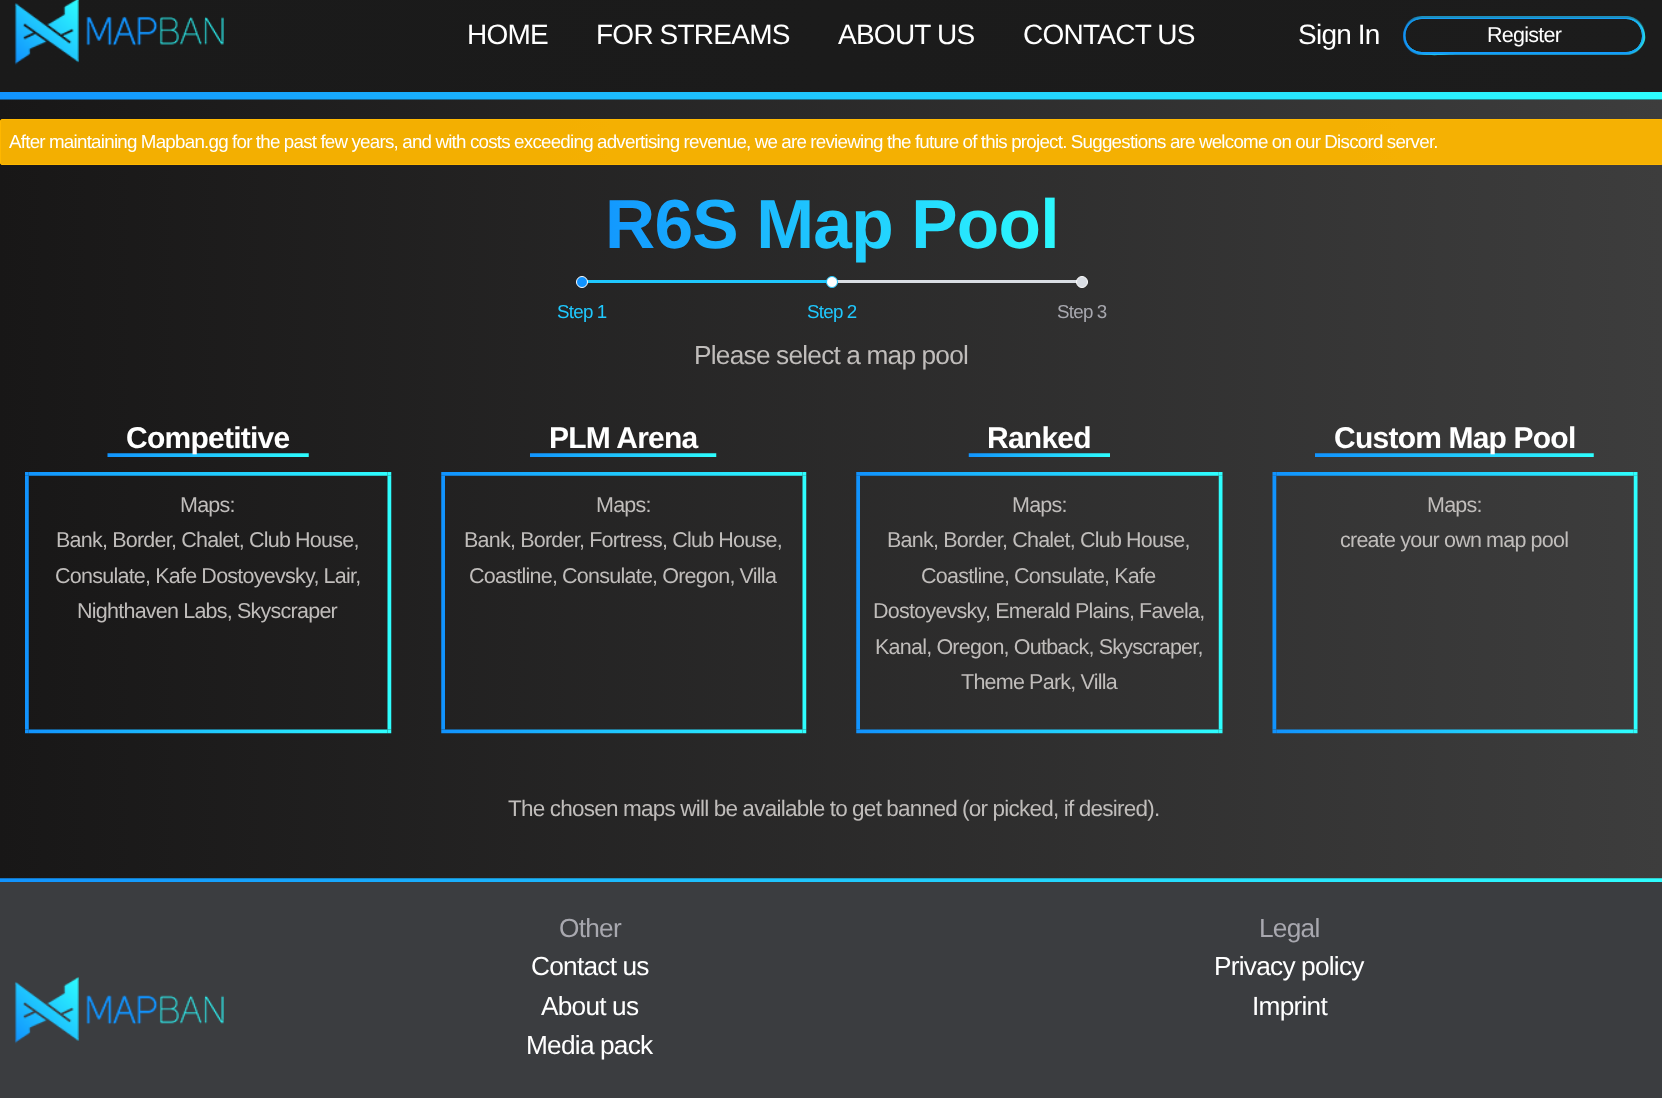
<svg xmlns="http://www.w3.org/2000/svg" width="1662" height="1098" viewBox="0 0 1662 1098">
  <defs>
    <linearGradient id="g1" gradientUnits="userSpaceOnUse" x1="0" y1="225" x2="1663" y2="225"><stop offset="0.35" stop-color="rgb(17,147,254)"/><stop offset="0.65" stop-color="rgb(46,254,254)"/></linearGradient>
    <linearGradient id="g2" gradientUnits="userSpaceOnUse" x1="0" y1="527" x2="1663" y2="527"><stop offset="0" stop-color="rgb(24,23,23)"/><stop offset="1" stop-color="rgb(61,61,61)"/></linearGradient>
    <linearGradient id="g3" gradientUnits="userSpaceOnUse" x1="0" y1="35" x2="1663" y2="35"><stop offset="0" stop-color="rgb(26,26,26)"/><stop offset="1" stop-color="rgb(28,28,28)"/></linearGradient>
  </defs>
  <rect width="100%" height="100%" fill="rgb(255,255,255)"/>
  <rect x="0" y="100" width="1662" height="779" fill="url(#g2)"/>
  <rect x="0" y="0" width="1662" height="100" fill="url(#g3)"/>
  <image x="0" y="92" width="1662" height="8" href="pic1.png"/>
  <image x="14" y="0" width="210" height="65" href="pic2.png"/>
  <g font-family="Liberation Sans" font-size="28" letter-spacing="-0.75" fill="rgb(255,255,255)">
    <text x="467" y="44">HOME</text>
    <text x="596" y="44" word-spacing="-0.3">FOR STREAMS</text>
    <text x="838" y="44" word-spacing="-0.3">ABOUT US</text>
    <text x="1023" y="44" word-spacing="-0.3">CONTACT US</text>
    <text x="1298" y="44" word-spacing="-0.3">Sign In</text>
  </g>
  <path d="M1423 18C1417 18 1412 21 1408 25C1412 21 1416 19 1422 19H1626C1635 19 1642 26 1642 36C1642 45 1635 52 1626 52H1422C1413 52 1405 45 1405 36C1405 62 1444 54 1457 54H1627C1635 54 1643 48 1645 40C1647 29 1638 18 1627 18Z" fill="rgb(42,198,198)"/>
  <path d="M1405 36V37C1405 47 1413 55 1423 55H1627C1637 55 1645 47 1645 37C1645 28 1638 20 1629 19C1647 23 1647 49 1629 52H1456C1444 52 1406 60 1405 36Z" fill="rgba(46,254,254,0.25)"/>
  <path d="M1424 16C1413 16 1405 25 1405 35C1405 26 1413 19 1422 19H1626C1635 19 1642 26 1642 36C1642 45 1635 52 1626 52H1422H1416C1419 53 1421 53 1424 53H1626C1637 53 1645 45 1645 34C1645 24 1637 16 1626 16Z" fill="rgba(46,254,254,0.25)"/>
  <path d="M1411 23C1407 26 1404 31 1404 37C1404 47 1412 55 1422 55H1626C1636 55 1644 47 1644 37C1644 29 1639 23 1633 20C1638 23 1642 29 1642 36C1642 45 1635 52 1626 52H1422C1413 52 1405 45 1405 36C1405 31 1407 26 1411 23Z" fill="rgba(31,200,254,0.5)"/>
  <path d="M1422 16C1398 16 1398 53 1422 53H1629C1635 51 1640 47 1643 42C1648 30 1639 16 1626 16ZM1422 19C1400 19 1400 52 1422 52H1629C1633 51 1637 49 1640 45C1647 34 1639 19 1626 19Z" fill="rgba(31,200,254,0.5)" fill-rule="evenodd"/>
  <path d="M1417 19C1409 21 1403 28 1403 37C1403 47 1411 55 1421 55H1625C1635 55 1643 47 1643 37C1643 34 1642 32 1641 29C1642 31 1642 33 1642 36C1642 45 1635 52 1626 52H1422C1413 52 1405 45 1405 36C1405 28 1410 21 1417 19Z" fill="rgba(17,147,254,0.25)"/>
  <path d="M1422 16C1397 16 1397 53 1422 53H1628C1634 51 1639 47 1642 42C1647 30 1638 16 1624 16ZM1422 19C1400 19 1400 52 1422 52H1629C1633 51 1637 49 1640 45C1647 34 1639 19 1626 19Z" fill="rgba(17,147,254,0.25)" fill-rule="evenodd"/>
  <path d="M1421 18C1411 18 1403 26 1403 36C1403 46 1411 54 1421 54H1625C1635 54 1643 46 1643 36C1643 26 1635 18 1625 18ZM1422 19C1400 19 1400 52 1422 52H1629C1633 51 1637 49 1640 45C1647 34 1639 19 1626 19Z" fill="rgba(17,147,254,0.75)" fill-rule="evenodd"/>
  <text x="1487" y="42" font-family="Liberation Sans" font-size="21.5" letter-spacing="-0.75" fill="rgb(255,255,255)">Register</text>
  <rect x="0.5" y="119.5" width="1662" height="45" rx="1.5" fill="rgba(255,183,0,0.95)" stroke="rgb(255,183,0)"/>
  <text x="9" y="148" word-spacing="-0.3" font-family="Liberation Sans" font-size="18.75" letter-spacing="-0.75" fill="rgb(255,255,255)">After maintaining Mapban.gg for the past few years, and with costs exceeding advertising revenue, we are reviewing the future of this project. Suggestions are welcome on our Discord server.</text>
  <text x="605" y="248" word-spacing="-0.3" font-family="Liberation Sans" font-size="69.5" font-weight="bold" letter-spacing="-0.75" fill="url(#g1)">R6S Map Pool</text>
  <rect x="581" y="280" width="250" height="3" fill="rgb(31,200,254)"/>
  <circle cx="582" cy="282" r="5.5" fill="rgb(17,147,254)" stroke="rgb(255,255,255)"/>
  <text x="557" y="318" word-spacing="-0.3" font-family="Liberation Sans" font-size="18.75" letter-spacing="-0.75" fill="rgb(31,200,254)">Step 1</text>
  <rect x="831" y="280" width="250" height="3" fill="rgb(218,222,228)"/>
  <circle cx="832" cy="282" r="5.5" fill="rgb(255,255,255)" stroke="rgb(31,200,254)"/>
  <text x="807" y="318" word-spacing="-0.3" font-family="Liberation Sans" font-size="18.75" letter-spacing="-0.75" fill="rgb(31,200,254)">Step 2</text>
  <circle cx="1082" cy="282" r="5.5" fill="rgb(218,222,228)" stroke="rgb(255,255,255)"/>
  <text x="1057" y="318" word-spacing="-0.3" font-family="Liberation Sans" font-size="18.75" letter-spacing="-0.75" fill="rgb(168,168,175)">Step 3</text>
  <text x="694" y="364" word-spacing="-0.3" font-family="Liberation Sans" font-size="26.25" letter-spacing="-0.75" fill="rgb(192,189,187)">Please select a map pool</text>
  <image x="107" y="453" width="202" height="4" href="pic3.png"/>
  <text x="126" y="448" font-family="Liberation Sans" font-size="30" font-weight="bold" letter-spacing="-0.75" fill="rgb(255,255,255)">Competitive</text>
  <image x="25" y="472" width="367" height="262" href="pic4.png"/>
  <g font-family="Liberation Sans" font-size="21.5" letter-spacing="-0.75" fill="rgb(192,189,187)">
    <text x="180" y="512">Maps:</text>
    <text x="56" y="547" word-spacing="-0.3">Bank, Border, Chalet, Club House,</text>
    <text x="55" y="583" word-spacing="-0.3">Consulate, Kafe Dostoyevsky, Lair,</text>
    <text x="77" y="618" word-spacing="-0.3">Nighthaven Labs, Skyscraper</text>
  </g>
  <text x="549" y="448" word-spacing="-0.3" font-family="Liberation Sans" font-size="30" font-weight="bold" letter-spacing="-0.75" fill="rgb(255,255,255)">PLM Arena</text>
  <image x="530" y="453" width="187" height="4" href="pic5.png"/>
  <image x="441" y="472" width="366" height="262" href="pic6.png"/>
  <g font-family="Liberation Sans" font-size="21.5" letter-spacing="-0.75" fill="rgb(192,189,187)">
    <text x="596" y="512">Maps:</text>
    <text x="464" y="547" word-spacing="-0.3">Bank, Border, Fortress, Club House,</text>
    <text x="469" y="583" word-spacing="-0.3">Coastline, Consulate, Oregon, Villa</text>
  </g>
  <text x="987" y="448" font-family="Liberation Sans" font-size="30" font-weight="bold" letter-spacing="-0.75" fill="rgb(255,255,255)">Ranked</text>
  <image x="968" y="453" width="142" height="4" href="pic7.png"/>
  <image x="856" y="472" width="367" height="262" href="pic8.png"/>
  <g font-family="Liberation Sans" font-size="21.5" letter-spacing="-0.75" fill="rgb(192,189,187)">
    <text x="1012" y="512">Maps:</text>
    <text x="887" y="547" word-spacing="-0.3">Bank, Border, Chalet, Club House,</text>
    <text x="921" y="583" word-spacing="-0.3">Coastline, Consulate, Kafe</text>
    <text x="873" y="618" word-spacing="-0.3">Dostoyevsky, Emerald Plains, Favela,</text>
    <text x="875" y="654" word-spacing="-0.3">Kanal, Oregon, Outback, Skyscraper,</text>
    <text x="961" y="689" word-spacing="-0.3">Theme Park, Villa</text>
  </g>
  <image x="1315" y="453" width="279" height="4" href="pic9.png"/>
  <text x="1334" y="448" word-spacing="-0.3" font-family="Liberation Sans" font-size="30" font-weight="bold" letter-spacing="-0.75" fill="rgb(255,255,255)">Custom Map Pool</text>
  <image x="1272" y="472" width="366" height="262" href="pic10.png"/>
  <g font-family="Liberation Sans" font-size="21.5" letter-spacing="-0.75" fill="rgb(192,189,187)">
    <text x="1427" y="512">Maps:</text>
    <text x="1340" y="547" word-spacing="-0.3">create your own map pool</text>
  </g>
  <text x="508" y="816" word-spacing="-0.3" font-family="Liberation Sans" font-size="22.5" letter-spacing="-0.75" fill="rgb(192,189,187)">The chosen maps will be available to get banned (or picked, if desired).</text>
  <rect x="0" y="882" width="1662" height="216" fill="rgb(59,61,64)"/>
  <image x="0" y="878" width="1662" height="4" href="pic11.png"/>
  <image x="14" y="977" width="210" height="67" href="pic12.png"/>
  <text x="559" y="937" font-family="Liberation Sans" font-size="26.25" letter-spacing="-0.75" fill="rgb(168,168,175)">Other</text>
  <g font-family="Liberation Sans" font-size="26.25" letter-spacing="-0.75" fill="rgb(255,255,255)">
    <text x="531" y="975" word-spacing="-0.3">Contact us</text>
    <text x="541" y="1015" word-spacing="-0.3">About us</text>
    <text x="526" y="1054" word-spacing="-0.3">Media pack</text>
  </g>
  <text x="1259" y="937" font-family="Liberation Sans" font-size="26.25" letter-spacing="-0.75" fill="rgb(168,168,175)">Legal</text>
  <g font-family="Liberation Sans" font-size="26.25" letter-spacing="-0.75" fill="rgb(255,255,255)">
    <text x="1214" y="975" word-spacing="-0.3">Privacy policy</text>
    <text x="1252" y="1015">Imprint</text>
  </g>
</svg>
